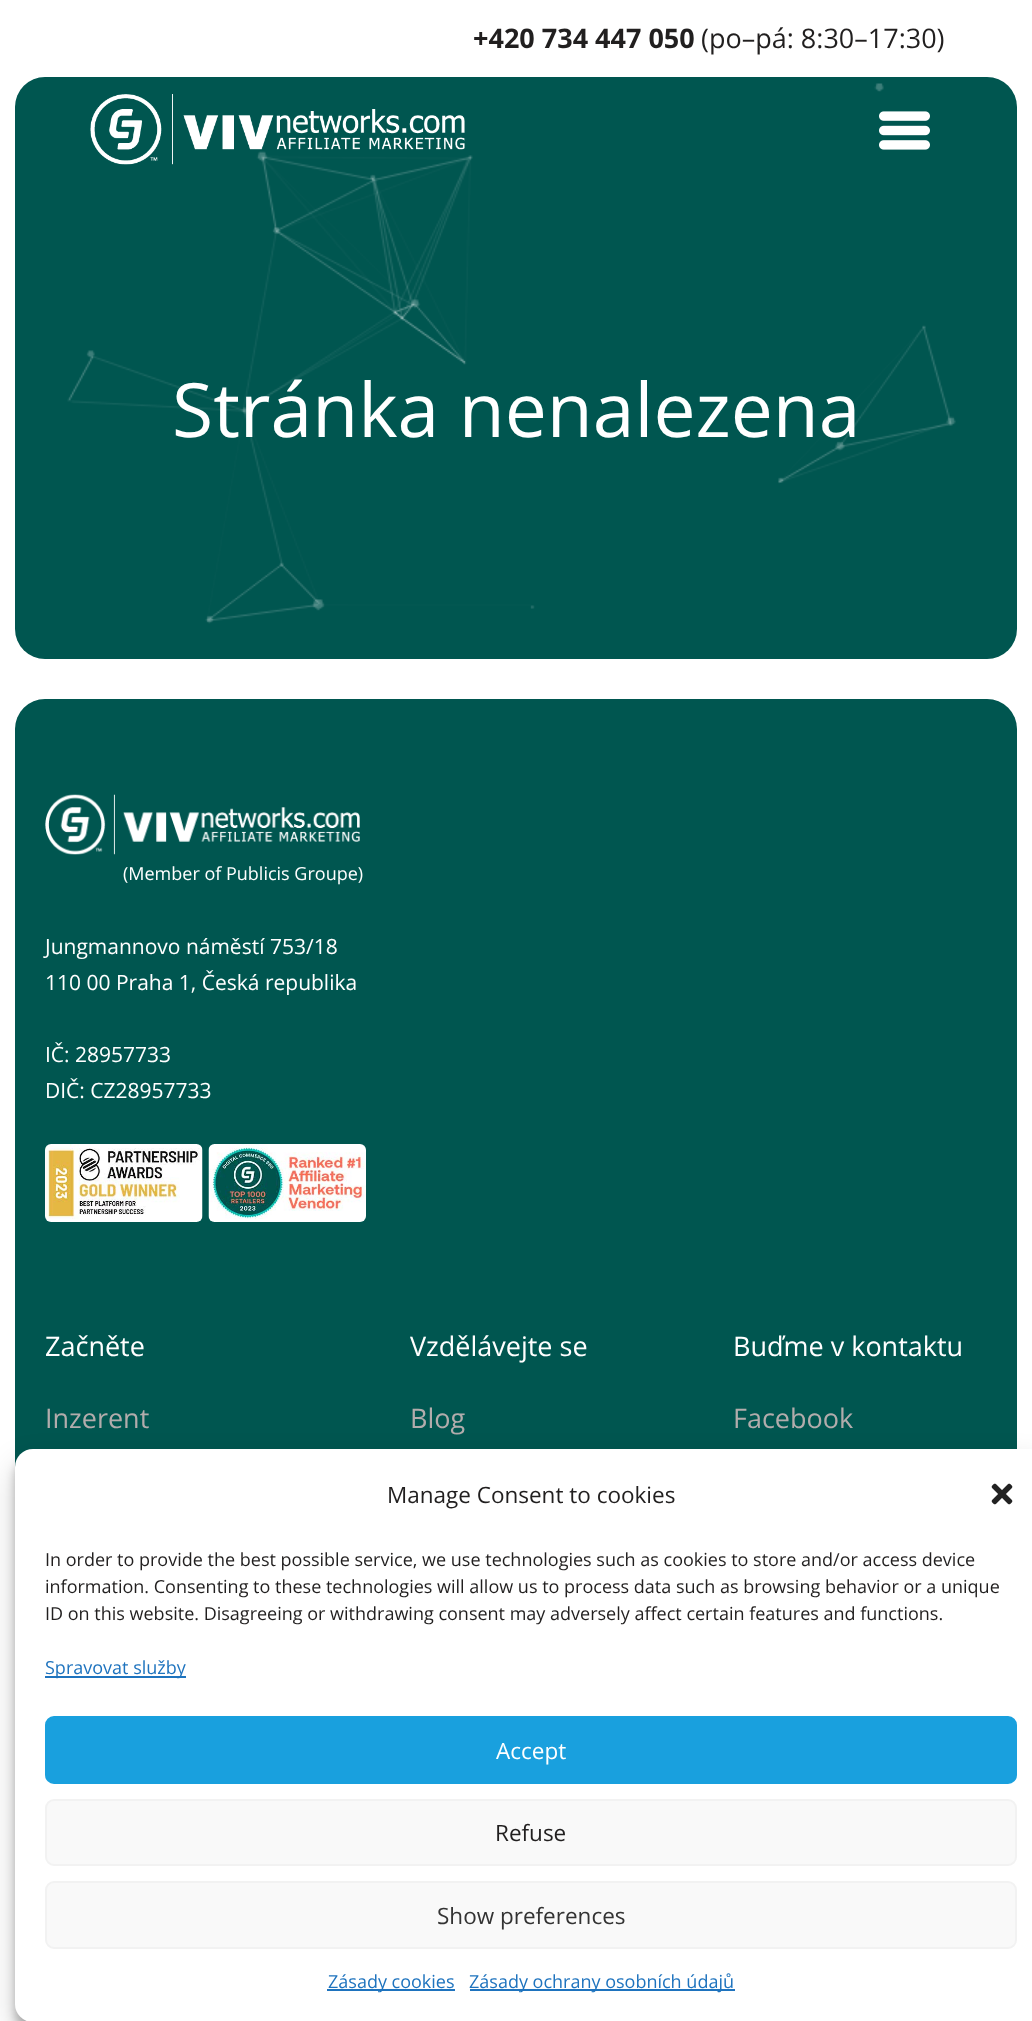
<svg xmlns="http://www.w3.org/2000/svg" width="1032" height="2021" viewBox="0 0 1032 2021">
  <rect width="100%" height="100%" fill="rgb(255,255,255)"/>
  <text x="473" y="48" font-family="Open Sans" font-size="27" font-weight="bold" fill="rgb(33,31,31)">+420 734 447 050</text>
  <text x="701" y="48" font-family="Open Sans" font-size="27" fill="rgb(33,31,31)">(po–pá: 8:30–17:30)</text>
  <rect x="15" y="77" width="1002" height="582" rx="30" fill="rgb(0,86,80)"/>
  <image x="67" y="83" width="889" height="541" href="pic3.png"/>
  <image x="90" y="94" width="375" height="71" href="pic1.png"/>
  <image x="879" y="111" width="51" height="39" href="pic2.png"/>
  <text x="172" y="437" font-family="Open Sans" font-size="75" fill="rgb(255,255,255)">Stránka nenalezena</text>
  <rect x="15" y="699" width="1002" height="1271" rx="30" fill="rgb(0,86,80)"/>
  <image x="45" y="794" width="315" height="61" href="pic4.png"/>
  <text x="123" y="880" font-family="Open Sans" font-size="18" fill="rgb(255,255,255)">(Member of Publicis Groupe)</text>
  <g font-family="Open Sans" font-size="21" fill="rgb(255,255,255)">
    <text>
      <tspan x="45" y="954">Jungmannovo náměstí 753/18</tspan>
      <tspan x="45" y="990">110 00 Praha 1, Česká republika</tspan>
    </text>
    <text>
      <tspan x="45" y="1062">IČ: 28957733</tspan>
      <tspan x="45" y="1098">DIČ: CZ28957733</tspan>
    </text>
  </g>
  <image x="45" y="1144" width="158" height="78" href="pic5.png"/>
  <image x="208" y="1144" width="158" height="78" href="pic6.png"/>
  <text x="45" y="1356" font-family="Open Sans" font-size="27" fill="rgb(255,255,255)">Začněte</text>
  <text x="45" y="1428" font-family="Open Sans" font-size="27" fill="rgb(178,172,172)">Inzerent</text>
  <text x="410" y="1356" font-family="Open Sans" font-size="27" fill="rgb(255,255,255)">Vzdělávejte se</text>
  <text x="410" y="1428" font-family="Open Sans" font-size="27" fill="rgb(178,172,172)">Blog</text>
  <text x="733" y="1356" font-family="Open Sans" font-size="27" fill="rgb(255,255,255)">Buďme v kontaktu</text>
  <text x="733" y="1428" font-family="Open Sans" font-size="27" fill="rgb(178,172,172)">Facebook</text>
  <rect x="15" y="1458" width="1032" height="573" rx="18" fill="rgba(0,0,0,0.23)" filter="blur(4.5px)"/>
  <rect x="15" y="1464" width="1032" height="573" rx="18" fill="rgba(0,0,0,0.19)" filter="blur(15px)"/>
  <rect x="15" y="1449" width="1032" height="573" rx="18" fill="rgb(255,255,255)"/>
  <text x="387" y="1503" font-family="Open Sans" font-size="22.5" fill="rgb(33,31,31)">Manage Consent to cookies</text>
  <image x="991" y="1483" width="22" height="22" href="pic7.png"/>
  <g font-family="Open Sans" font-size="18" fill="rgb(33,31,31)">
    <text>
      <tspan x="45" y="1566">In order to provide the best possible service, we use technologies such as cookies to store and/or access device</tspan>
      <tspan x="45" y="1593">information. Consenting to these technologies will allow us to process data such as browsing behavior or a unique</tspan>
      <tspan x="45" y="1620">ID on this website. Disagreeing or withdrawing consent may adversely affect certain features and functions.</tspan>
    </text>
  </g>
  <rect x="45" y="1676" width="141" height="2" fill="rgb(30,115,190)"/>
  <text x="45" y="1674" font-family="Open Sans" font-size="18" fill="rgb(30,115,190)">Spravovat služby</text>
  <rect x="46" y="1717" width="970" height="66" rx="8" fill="rgb(25,160,222)" stroke="rgb(25,160,222)" stroke-width="2"/>
  <text x="496" y="1759" font-family="Open Sans" font-size="22.5" fill="rgb(255,255,255)">Accept</text>
  <rect x="46" y="1800" width="970" height="65" rx="8" fill="rgb(249,249,249)" stroke="rgb(242,242,242)" stroke-width="2"/>
  <text x="495" y="1841" font-family="Open Sans" font-size="22.5" fill="rgb(33,31,31)">Refuse</text>
  <rect x="46" y="1882" width="970" height="66" rx="8" fill="rgb(249,249,249)" stroke="rgb(242,242,242)" stroke-width="2"/>
  <text x="437" y="1924" font-family="Open Sans" font-size="22.5" fill="rgb(51,51,51)">Show preferences</text>
  <rect x="327" y="1989" width="128" height="2" fill="rgb(30,115,190)"/>
  <text x="328" y="1988" font-family="Open Sans" font-size="18" fill="rgb(30,115,190)">Zásady cookies</text>
  <rect x="470" y="1989" width="265" height="2" fill="rgb(30,115,190)"/>
  <text x="469" y="1988" font-family="Open Sans" font-size="18" fill="rgb(30,115,190)">Zásady ochrany osobních údajů</text>
</svg>
